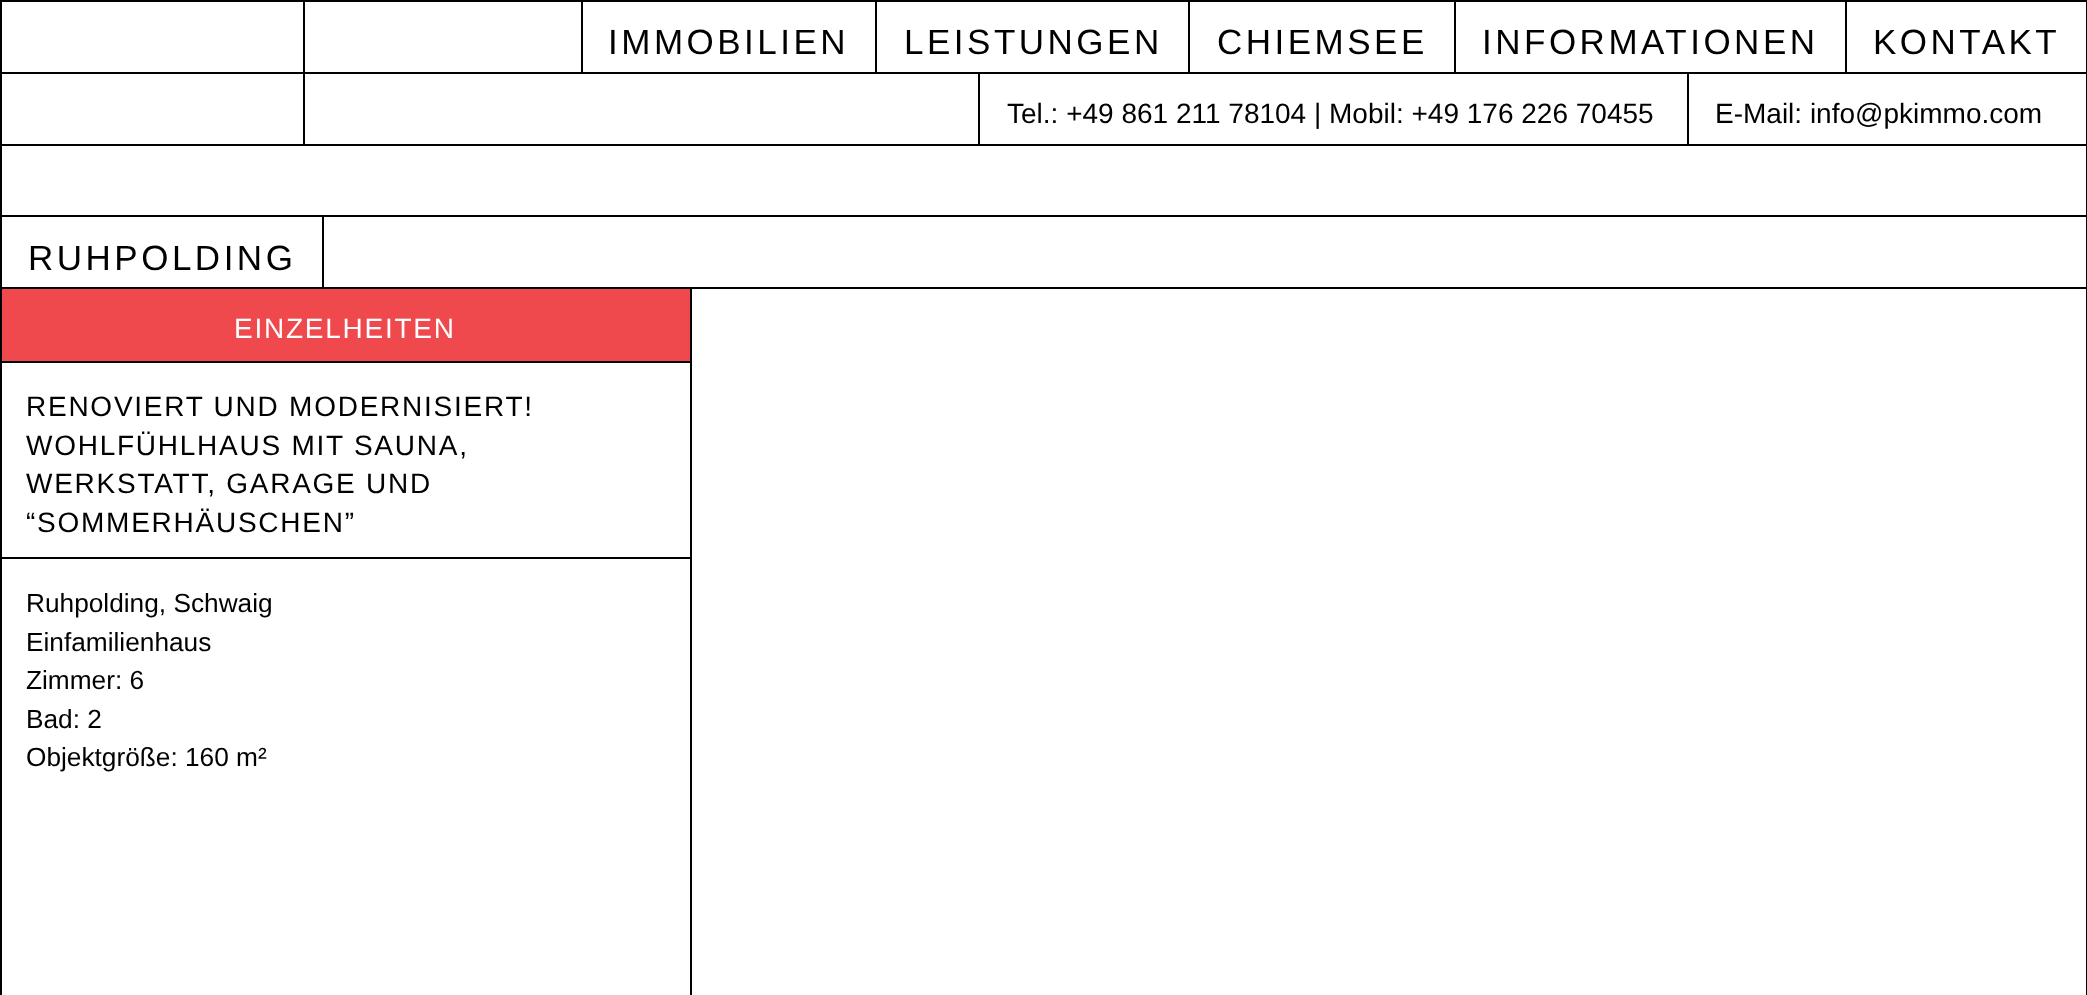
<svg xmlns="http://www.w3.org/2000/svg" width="2087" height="995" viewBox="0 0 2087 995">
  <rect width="100%" height="100%" fill="rgb(255,255,255)"/>
  <rect x="0" y="0" width="2087" height="2" fill="rgb(0,0,0)"/>
  <rect x="2086" y="0" width="1" height="144" fill="rgb(0,0,0)"/>
  <rect x="0" y="0" width="2" height="144" fill="rgb(0,0,0)"/>
  <rect x="303" y="2" width="2" height="70" fill="rgb(0,0,0)"/>
  <rect x="581" y="2" width="2" height="70" fill="rgb(0,0,0)"/>
  <text x="608" y="54" font-family="Liberation Sans" font-size="35" letter-spacing="3.5" fill="rgb(0,0,0)">IMMOBILIEN</text>
  <rect x="875" y="2" width="2" height="70" fill="rgb(0,0,0)"/>
  <text x="904" y="54" font-family="Liberation Sans" font-size="35" letter-spacing="3.5" fill="rgb(0,0,0)">LEISTUNGEN</text>
  <rect x="1188" y="2" width="2" height="70" fill="rgb(0,0,0)"/>
  <text x="1217" y="54" font-family="Liberation Sans" font-size="35" letter-spacing="3.5" fill="rgb(0,0,0)">CHIEMSEE</text>
  <rect x="1454" y="2" width="2" height="70" fill="rgb(0,0,0)"/>
  <text x="1482" y="54" font-family="Liberation Sans" font-size="35" letter-spacing="3.5" fill="rgb(0,0,0)">INFORMATIONEN</text>
  <rect x="1845" y="2" width="2" height="70" fill="rgb(0,0,0)"/>
  <text x="1873" y="54" font-family="Liberation Sans" font-size="35" letter-spacing="3.5" fill="rgb(0,0,0)">KONTAKT</text>
  <rect x="2" y="72" width="2084" height="2" fill="rgb(0,0,0)"/>
  <rect x="303" y="74" width="2" height="70" fill="rgb(0,0,0)"/>
  <rect x="978" y="74" width="2" height="70" fill="rgb(0,0,0)"/>
  <text x="1007" y="123" font-family="Liberation Sans" font-size="28" fill="rgb(0,0,0)">Tel.: +49 861 211 78104 | Mobil: +49 176 226 70455</text>
  <rect x="1687" y="74" width="2" height="70" fill="rgb(0,0,0)"/>
  <text x="1715" y="123" font-family="Liberation Sans" font-size="28" fill="rgb(0,0,0)">E-Mail: info@pkimmo.com</text>
  <rect x="1" y="145" width="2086" height="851" fill="none" stroke="rgb(0,0,0)" stroke-width="2"/>
  <rect x="2" y="215" width="2084" height="2" fill="rgb(0,0,0)"/>
  <rect x="2" y="287" width="2084" height="2" fill="rgb(0,0,0)"/>
  <rect x="322" y="217" width="2" height="70" fill="rgb(0,0,0)"/>
  <text x="28" y="270" font-family="Liberation Sans" font-size="35" letter-spacing="3.5" fill="rgb(0,0,0)">RUHPOLDING</text>
  <rect x="2" y="289" width="688" height="72" fill="rgb(239,72,77)"/>
  <text x="234" y="338" font-family="Liberation Sans" font-size="28" letter-spacing="1.75" fill="rgb(255,255,255)">EINZELHEITEN</text>
  <rect x="2" y="361" width="688" height="2" fill="rgb(0,0,0)"/>
  <g font-family="Liberation Sans" font-size="28" letter-spacing="1.75" fill="rgb(0,0,0)">
    <text>
      <tspan x="26" y="416">RENOVIERT UND MODERNISIERT!</tspan>
      <tspan x="26" y="455">WOHLFÜHLHAUS MIT SAUNA,</tspan>
      <tspan x="26" y="493">WERKSTATT, GARAGE UND</tspan>
      <tspan x="26" y="532">“SOMMERHÄUSCHEN”</tspan>
    </text>
  </g>
  <rect x="2" y="557" width="688" height="2" fill="rgb(0,0,0)"/>
  <g font-family="Liberation Sans" font-size="26.25" fill="rgb(0,0,0)">
    <text>
      <tspan x="26" y="612">Ruhpolding, Schwaig</tspan>
      <tspan x="26" y="651">Einfamilienhaus</tspan>
      <tspan x="26" y="689">Zimmer: 6</tspan>
      <tspan x="26" y="728">Bad: 2</tspan>
      <tspan x="26" y="766">Objektgröße: 160 m²</tspan>
    </text>
  </g>
  <rect x="690" y="289" width="2" height="706" fill="rgb(0,0,0)"/>
</svg>
